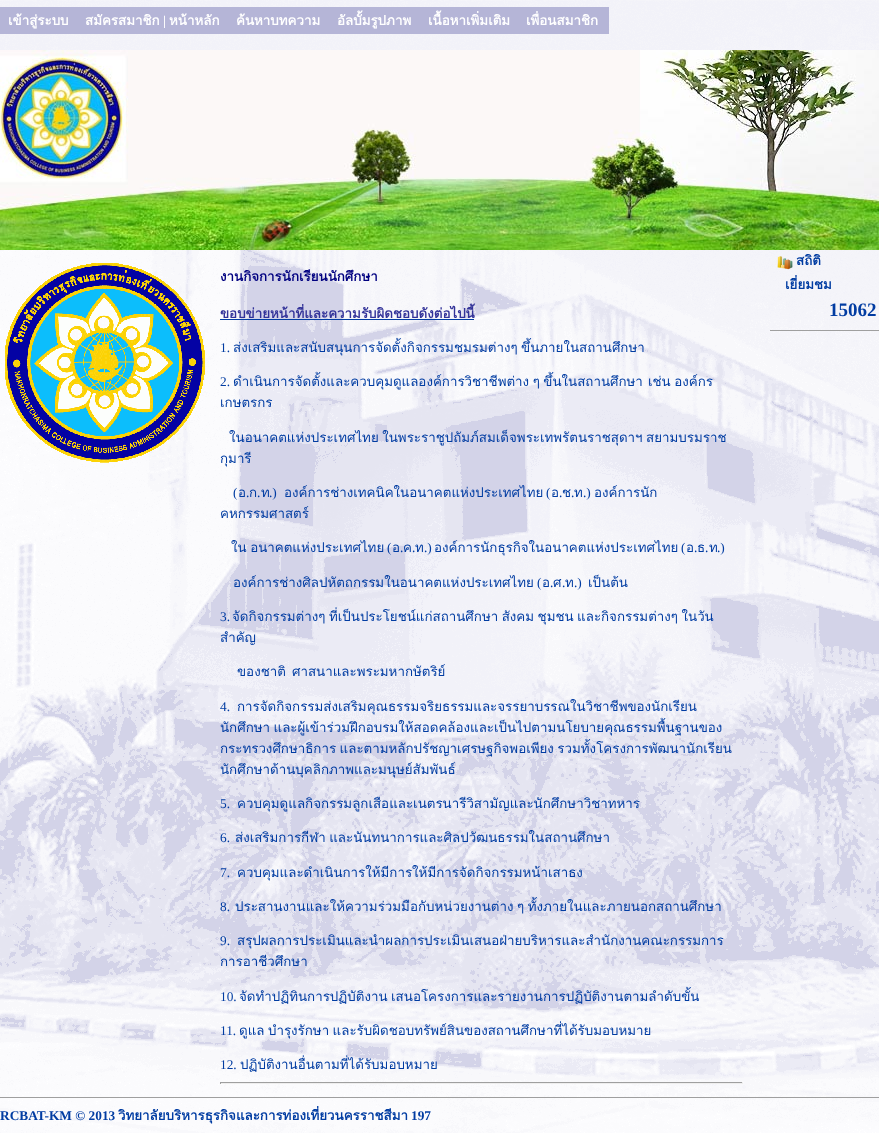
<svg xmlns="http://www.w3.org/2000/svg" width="879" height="1133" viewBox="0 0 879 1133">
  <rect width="100%" height="100%" fill="rgb(255,255,255)"/>
  <image x="0" y="0" width="879" height="1133" href="pic1.png"/>
  <rect x="0" y="7" width="609" height="1" fill="rgb(181,181,215)"/>
  <rect x="608" y="7" width="1" height="27" fill="rgb(181,181,215)"/>
  <rect x="0" y="33" width="609" height="1" fill="rgb(181,181,215)"/>
  <rect x="0" y="7" width="1" height="27" fill="rgb(181,181,215)"/>
  <rect x="1" y="8" width="607" height="25" fill="rgb(181,181,215)"/>
  <g font-family="Loma" font-size="13.35" font-weight="bold" fill="rgb(255,255,255)">
    <text x="8" y="25">เข้าสู่ระบบ</text>
    <text x="85" y="25">สมัครสมาชิก</text>
  </g>
  <text x="163" y="25" font-family="Liberation Serif" font-size="13.35" font-weight="bold" fill="rgb(255,255,255)">|</text>
  <g font-family="Loma" font-size="13.35" font-weight="bold" fill="rgb(255,255,255)">
    <text x="169" y="25">หน้าหลัก</text>
    <text x="236" y="25">ค้นหาบทความ</text>
    <text x="337" y="25">อัลบั้มรูปภาพ</text>
    <text x="428" y="25">เนื้อหาเพิ่มเติม</text>
    <text x="526" y="25">เพื่อนสมาชิก</text>
  </g>
  <image x="0" y="50" width="879" height="200" href="pic2.png"/>
  <image x="5" y="263" width="200" height="200" href="pic3.png"/>
  <text x="220" y="281" font-family="Loma" font-size="13.35" font-weight="bold" fill="rgb(0,0,128)">งานกิจการนักเรียนนักศึกษา</text>
  <text x="220" y="318" font-family="Loma" font-size="13.35" font-weight="bold" fill="rgb(51,51,153)">ขอบข่ายหน้าที่และความรับผิดชอบดังต่อไปนี้</text>
  <rect x="220" y="319" width="254" height="1" fill="rgb(1,60,162)"/>
  <text x="220" y="352" font-family="Liberation Serif" font-size="13.35" fill="rgb(1,60,162)">1.</text>
  <text x="233" y="352" word-spacing="-1" font-family="Loma" font-size="13.35" fill="rgb(1,60,162)">ส่งเสริมและสนับสนุนการจัดตั้งกิจกรรมชมรมต่างๆ ขึ้นภายในสถานศึกษา</text>
  <text x="220" y="386" font-family="Liberation Serif" font-size="13.35" fill="rgb(1,60,162)">2.</text>
  <g font-family="Loma" font-size="13.35" fill="rgb(1,60,162)">
    <text x="233" y="386" word-spacing="-1">ดำเนินการจัดตั้งและควบคุมดูแลองค์การวิชาชีพต่าง ๆ ขึ้นในสถานศึกษา</text>
    <text x="648" y="386" word-spacing="-1">เช่น องค์กร</text>
    <text x="220" y="407">เกษตรกร</text>
    <text x="229" y="442" word-spacing="-1">ในอนาคตแห่งประเทศไทย ในพระราชูปถัมภ์สมเด็จพระเทพรัตนราชสุดาฯ สยามบรมราช</text>
    <text x="220" y="463">กุมารี</text>
  </g>
  <text x="233" y="497" font-family="Liberation Serif" font-size="13.35" fill="rgb(1,60,162)">(</text>
  <text x="238" y="497" font-family="Loma" font-size="13.35" fill="rgb(1,60,162)">อ</text>
  <text x="246" y="497" font-family="Liberation Serif" font-size="13.35" fill="rgb(1,60,162)">.</text>
  <text x="249" y="497" font-family="Loma" font-size="13.35" fill="rgb(1,60,162)">ก</text>
  <text x="257" y="497" font-family="Liberation Serif" font-size="13.35" fill="rgb(1,60,162)">.</text>
  <text x="261" y="497" font-family="Loma" font-size="13.35" fill="rgb(1,60,162)">ท</text>
  <text x="269" y="497" font-family="Liberation Serif" font-size="13.35" fill="rgb(1,60,162)">.)</text>
  <text x="284" y="497" font-family="Loma" font-size="13.35" fill="rgb(1,60,162)">องค์การช่างเทคนิคในอนาคตแห่งประเทศไทย</text>
  <text x="546" y="497" font-family="Liberation Serif" font-size="13.35" fill="rgb(1,60,162)">(</text>
  <text x="551" y="497" font-family="Loma" font-size="13.35" fill="rgb(1,60,162)">อ</text>
  <text x="559" y="497" font-family="Liberation Serif" font-size="13.35" fill="rgb(1,60,162)">.</text>
  <text x="562" y="497" font-family="Loma" font-size="13.35" fill="rgb(1,60,162)">ช</text>
  <text x="571" y="497" font-family="Liberation Serif" font-size="13.35" fill="rgb(1,60,162)">.</text>
  <text x="574" y="497" font-family="Loma" font-size="13.35" fill="rgb(1,60,162)">ท</text>
  <text x="583" y="497" font-family="Liberation Serif" font-size="13.35" fill="rgb(1,60,162)">.)</text>
  <g font-family="Loma" font-size="13.35" fill="rgb(1,60,162)">
    <text x="594" y="497">องค์การนัก</text>
    <text x="220" y="518">คหกรรมศาสตร์</text>
    <text x="231" y="552" word-spacing="-1">ใน อนาคตแห่งประเทศไทย</text>
  </g>
  <text x="387" y="552" font-family="Liberation Serif" font-size="13.35" fill="rgb(1,60,162)">(</text>
  <text x="392" y="552" font-family="Loma" font-size="13.35" fill="rgb(1,60,162)">อ</text>
  <text x="400" y="552" font-family="Liberation Serif" font-size="13.35" fill="rgb(1,60,162)">.</text>
  <text x="403" y="552" font-family="Loma" font-size="13.35" fill="rgb(1,60,162)">ค</text>
  <text x="412" y="552" font-family="Liberation Serif" font-size="13.35" fill="rgb(1,60,162)">.</text>
  <text x="415" y="552" font-family="Loma" font-size="13.35" fill="rgb(1,60,162)">ท</text>
  <text x="424" y="552" font-family="Liberation Serif" font-size="13.35" fill="rgb(1,60,162)">.)</text>
  <text x="434" y="552" font-family="Loma" font-size="13.35" fill="rgb(1,60,162)">องค์การนักธุรกิจในอนาคตแห่งประเทศไทย</text>
  <text x="681" y="552" font-family="Liberation Serif" font-size="13.35" fill="rgb(1,60,162)">(</text>
  <text x="686" y="552" font-family="Loma" font-size="13.35" fill="rgb(1,60,162)">อ</text>
  <text x="694" y="552" font-family="Liberation Serif" font-size="13.35" fill="rgb(1,60,162)">.</text>
  <text x="697" y="552" font-family="Loma" font-size="13.35" fill="rgb(1,60,162)">ธ</text>
  <text x="705" y="552" font-family="Liberation Serif" font-size="13.35" fill="rgb(1,60,162)">.</text>
  <text x="709" y="552" font-family="Loma" font-size="13.35" fill="rgb(1,60,162)">ท</text>
  <text x="717" y="552" font-family="Liberation Serif" font-size="13.35" fill="rgb(1,60,162)">.)</text>
  <text x="233" y="587" font-family="Loma" font-size="13.35" fill="rgb(1,60,162)">องค์การช่างศิลปหัตถกรรมในอนาคตแห่งประเทศไทย</text>
  <text x="537" y="587" font-family="Liberation Serif" font-size="13.35" fill="rgb(1,60,162)">(</text>
  <text x="542" y="587" font-family="Loma" font-size="13.35" fill="rgb(1,60,162)">อ</text>
  <text x="550" y="587" font-family="Liberation Serif" font-size="13.35" fill="rgb(1,60,162)">.</text>
  <text x="553" y="587" font-family="Loma" font-size="13.35" fill="rgb(1,60,162)">ศ</text>
  <text x="562" y="587" font-family="Liberation Serif" font-size="13.35" fill="rgb(1,60,162)">.</text>
  <text x="565" y="587" font-family="Loma" font-size="13.35" fill="rgb(1,60,162)">ท</text>
  <text x="574" y="587" font-family="Liberation Serif" font-size="13.35" fill="rgb(1,60,162)">.)</text>
  <text x="588" y="587" font-family="Loma" font-size="13.35" fill="rgb(1,60,162)">เป็นต้น</text>
  <text x="220" y="621" font-family="Liberation Serif" font-size="13.35" fill="rgb(1,60,162)">3.</text>
  <g font-family="Loma" font-size="13.35" fill="rgb(1,60,162)">
    <text x="232" y="621" word-spacing="-1">จัดกิจกรรมต่างๆ ที่เป็นประโยชน์แก่สถานศึกษา สังคม ชุมชน และกิจกรรมต่างๆ ในวัน</text>
    <text x="220" y="642">สำคัญ</text>
    <text x="237" y="676">ของชาติ</text>
    <text x="292" y="676">ศาสนาและพระมหากษัตริย์</text>
  </g>
  <text x="220" y="711" font-family="Liberation Serif" font-size="13.35" fill="rgb(1,60,162)">4.</text>
  <g font-family="Loma" font-size="13.35" fill="rgb(1,60,162)">
    <text x="237" y="711">การจัดกิจกรรมส่งเสริมคุณธรรมจริยธรรมและจรรยาบรรณในวิชาชีพของนักเรียน</text>
    <text>
      <tspan x="220" y="732" word-spacing="-1">นักศึกษา และผู้เข้าร่วมฝึกอบรมให้สอดคล้องและเป็นไปตามนโยบายคุณธรรมพื้นฐานของ</tspan>
      <tspan x="220" y="753" word-spacing="-1">กระทรวงศึกษาธิการ และตามหลักปรัชญาเศรษฐกิจพอเพียง รวมทั้งโครงการพัฒนานักเรียน</tspan>
      <tspan x="220" y="774">นักศึกษาด้านบุคลิกภาพและมนุษย์สัมพันธ์</tspan>
    </text>
  </g>
  <text x="220" y="808" font-family="Liberation Serif" font-size="13.35" fill="rgb(1,60,162)">5.</text>
  <text x="237" y="808" font-family="Loma" font-size="13.35" fill="rgb(1,60,162)">ควบคุมดูแลกิจกรรมลูกเสือและเนตรนารีวิสามัญและนักศึกษาวิชาทหาร</text>
  <text x="220" y="842" font-family="Liberation Serif" font-size="13.35" fill="rgb(1,60,162)">6.</text>
  <text x="235" y="842" word-spacing="-1" font-family="Loma" font-size="13.35" fill="rgb(1,60,162)">ส่งเสริมการกีฬา และนันทนาการและศิลปวัฒนธรรมในสถานศึกษา</text>
  <text x="220" y="877" font-family="Liberation Serif" font-size="13.35" fill="rgb(1,60,162)">7.</text>
  <text x="237" y="877" font-family="Loma" font-size="13.35" fill="rgb(1,60,162)">ควบคุมและดำเนินการให้มีการให้มีการจัดกิจกรรมหน้าเสาธง</text>
  <text x="220" y="911" font-family="Liberation Serif" font-size="13.35" fill="rgb(1,60,162)">8.</text>
  <text x="235" y="911" word-spacing="-1" font-family="Loma" font-size="13.35" fill="rgb(1,60,162)">ประสานงานและให้ความร่วมมือกับหน่วยงานต่าง ๆ ทั้งภายในและภายนอกสถานศึกษา</text>
  <text x="220" y="945" font-family="Liberation Serif" font-size="13.35" fill="rgb(1,60,162)">9.</text>
  <g font-family="Loma" font-size="13.35" fill="rgb(1,60,162)">
    <text x="237" y="945">สรุปผลการประเมินและนำผลการประเมินเสนอฝ่ายบริหารและสำนักงานคณะกรรมการ</text>
    <text x="220" y="966">การอาชีวศึกษา</text>
  </g>
  <text x="220" y="1001" font-family="Liberation Serif" font-size="13.35" fill="rgb(1,60,162)">10.</text>
  <text x="239" y="1001" word-spacing="-1" font-family="Loma" font-size="13.35" fill="rgb(1,60,162)">จัดทำปฏิทินการปฏิบัติงาน เสนอโครงการและรายงานการปฏิบัติงานตามลำดับขั้น</text>
  <text x="220" y="1035" font-family="Liberation Serif" font-size="13.35" fill="rgb(1,60,162)">11.</text>
  <text x="239" y="1035" word-spacing="-1" font-family="Loma" font-size="13.35" fill="rgb(1,60,162)">ดูแล บำรุงรักษา และรับผิดชอบทรัพย์สินของสถานศึกษาที่ได้รับมอบหมาย</text>
  <text x="220" y="1069" font-family="Liberation Serif" font-size="13.35" fill="rgb(1,60,162)">12.</text>
  <text x="240" y="1069" font-family="Loma" font-size="13.35" fill="rgb(1,60,162)">ปฏิบัติงานอื่นตามที่ได้รับมอบหมาย</text>
  <rect x="220" y="1082" width="523" height="1" fill="rgb(159,159,159)"/>
  <rect x="742" y="1082" width="1" height="2" fill="rgb(238,238,238)"/>
  <rect x="220" y="1083" width="523" height="1" fill="rgb(238,238,238)"/>
  <rect x="220" y="1082" width="1" height="2" fill="rgb(159,159,159)"/>
  <image x="777" y="256" width="16" height="14" href="pic4.png"/>
  <g font-family="Loma" font-size="13.35" font-weight="bold" fill="rgb(1,60,162)">
    <text x="796" y="265">สถิติ</text>
    <text x="785" y="289">เยี่ยมชม</text>
  </g>
  <text x="829" y="316" font-family="Liberation Serif" font-size="19" font-weight="bold" fill="rgb(1,60,162)">15062</text>
  <rect x="770" y="330" width="109" height="1" fill="rgb(159,159,159)"/>
  <rect x="0" y="1097" width="879" height="1" fill="rgb(159,159,159)"/>
  <text x="0" y="1120" font-family="Liberation Serif" font-size="13.35" font-weight="bold" fill="rgb(1,60,162)">RCBAT-KM © 2013</text>
  <text x="118" y="1120" font-family="Loma" font-size="13.35" font-weight="bold" fill="rgb(1,60,162)">วิทยาลัยบริหารธุรกิจและการท่องเที่ยวนครราชสีมา</text>
  <text x="411" y="1120" font-family="Liberation Serif" font-size="13.35" font-weight="bold" fill="rgb(1,60,162)">197</text>
</svg>
